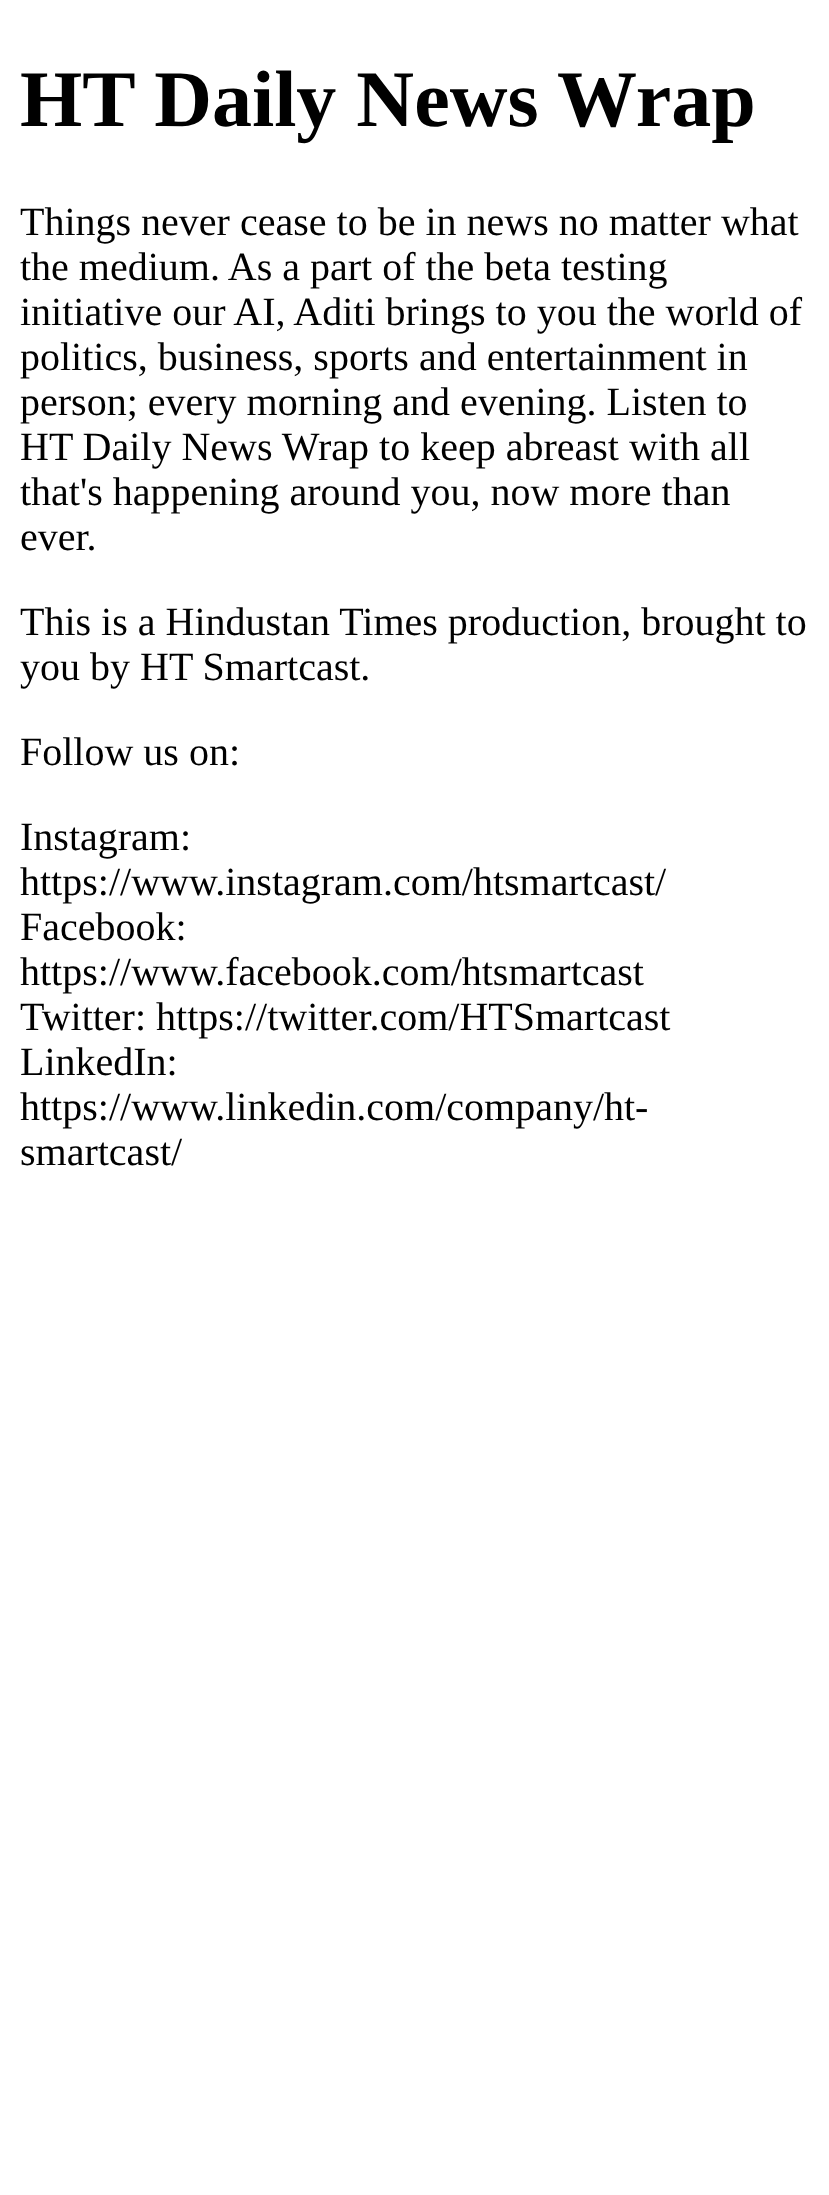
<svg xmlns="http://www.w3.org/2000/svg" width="829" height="2195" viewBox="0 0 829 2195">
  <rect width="100%" height="100%" fill="rgb(255,255,255)"/>
  <text x="20" y="126" font-family="Liberation Serif" font-size="80" font-weight="bold" fill="rgb(0,0,0)">HT Daily News Wrap</text>
  <g font-family="Liberation Serif" font-size="40" fill="rgb(0,0,0)">
    <text>
      <tspan x="20" y="235">Things never cease to be in news no matter what</tspan>
      <tspan x="20" y="280">the medium. As a part of the beta testing</tspan>
      <tspan x="20" y="325">initiative our AI, Aditi brings to you the world of</tspan>
      <tspan x="20" y="370">politics, business, sports and entertainment in</tspan>
      <tspan x="20" y="415">person; every morning and evening. Listen to</tspan>
      <tspan x="20" y="460">HT Daily News Wrap to keep abreast with all</tspan>
      <tspan x="20" y="505">that's happening around you, now more than</tspan>
      <tspan x="20" y="550">ever.</tspan>
    </text>
    <text>
      <tspan x="20" y="635">This is a Hindustan Times production, brought to</tspan>
      <tspan x="20" y="680">you by HT Smartcast.</tspan>
    </text>
    <text x="20" y="765">Follow us on:</text>
    <text>
      <tspan x="20" y="850">Instagram:</tspan>
      <tspan x="20" y="895">https://www.instagram.com/htsmartcast/</tspan>
      <tspan x="20" y="940">Facebook:</tspan>
      <tspan x="20" y="985">https://www.facebook.com/htsmartcast</tspan>
      <tspan x="20" y="1030">Twitter: https://twitter.com/HTSmartcast</tspan>
      <tspan x="20" y="1075">LinkedIn:</tspan>
      <tspan x="20" y="1120">https://www.linkedin.com/company/ht-</tspan>
      <tspan x="20" y="1165">smartcast/</tspan>
    </text>
  </g>
</svg>
